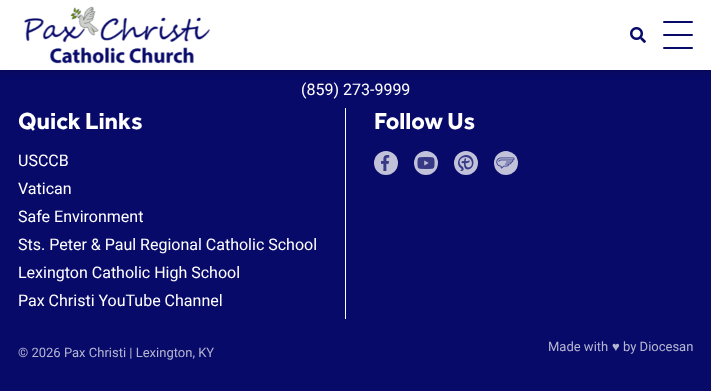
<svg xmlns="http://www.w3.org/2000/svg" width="711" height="391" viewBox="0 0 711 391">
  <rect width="100%" height="100%" fill="rgb(8,10,106)"/>
  <rect x="0" y="3" width="711" height="70" fill="rgba(0,0,0,0.16)" filter="blur(3px)"/>
  <rect x="0" y="0" width="711" height="70" fill="rgb(255,255,255)"/>
  <image x="24" y="6" width="186" height="58" href="pic1.png"/>
  <image x="630" y="27" width="16" height="16" href="pic2.png"/>
  <rect x="663" y="21" width="30" height="2" rx="1" fill="rgb(8,10,106)"/>
  <rect x="663" y="34" width="30" height="2" rx="1" fill="rgb(8,10,106)"/>
  <rect x="663" y="47" width="30" height="2" rx="1" fill="rgb(8,10,106)"/>
  <text x="301" y="95" font-family="Roboto" font-size="16" fill="rgb(255,255,255)">(859) 273-9999</text>
  <rect x="345" y="108" width="1" height="211" fill="rgb(255,255,255)"/>
  <text x="18" y="129" font-family="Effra" font-size="24" font-weight="bold" fill="rgb(255,255,255)">Quick Links</text>
  <g font-family="Roboto" font-size="16" fill="rgb(255,255,255)">
    <text>
      <tspan x="18" y="166">USCCB</tspan>
      <tspan x="18" y="194">Vatican</tspan>
      <tspan x="18" y="222">Safe Environment</tspan>
      <tspan x="18" y="250">Sts. Peter &amp; Paul Regional Catholic School</tspan>
      <tspan x="18" y="278">Lexington Catholic High School</tspan>
      <tspan x="18" y="306">Pax Christi YouTube Channel</tspan>
    </text>
  </g>
  <text x="374" y="129" font-family="Effra" font-size="24" font-weight="bold" fill="rgb(255,255,255)">Follow Us</text>
  <circle cx="386" cy="163" r="12" fill="rgb(193,194,218)"/>
  <image x="381" y="155" width="9" height="16" href="pic3.png"/>
  <circle cx="426" cy="163" r="12" fill="rgb(193,194,218)"/>
  <image x="417" y="157" width="18" height="12" href="pic4.png"/>
  <circle cx="466" cy="163" r="12" fill="rgb(193,194,218)"/>
  <image x="458" y="155" width="16" height="16" href="pic5.png"/>
  <circle cx="506" cy="163" r="12" fill="rgb(193,194,218)"/>
  <image x="496" y="157" width="19" height="12" href="pic6.png"/>
  <g font-family="Roboto" font-size="13" fill="rgb(181,182,210)">
    <text x="18" y="357">© 2026 Pax Christi | Lexington, KY</text>
    <text x="548" y="351">Made with</text>
  </g>
  <text x="612" y="351" font-family="Liberation Sans" font-size="13" fill="rgb(181,182,210)">♥</text>
  <text x="623" y="351" font-family="Roboto" font-size="13" fill="rgb(181,182,210)">by Diocesan</text>
</svg>
